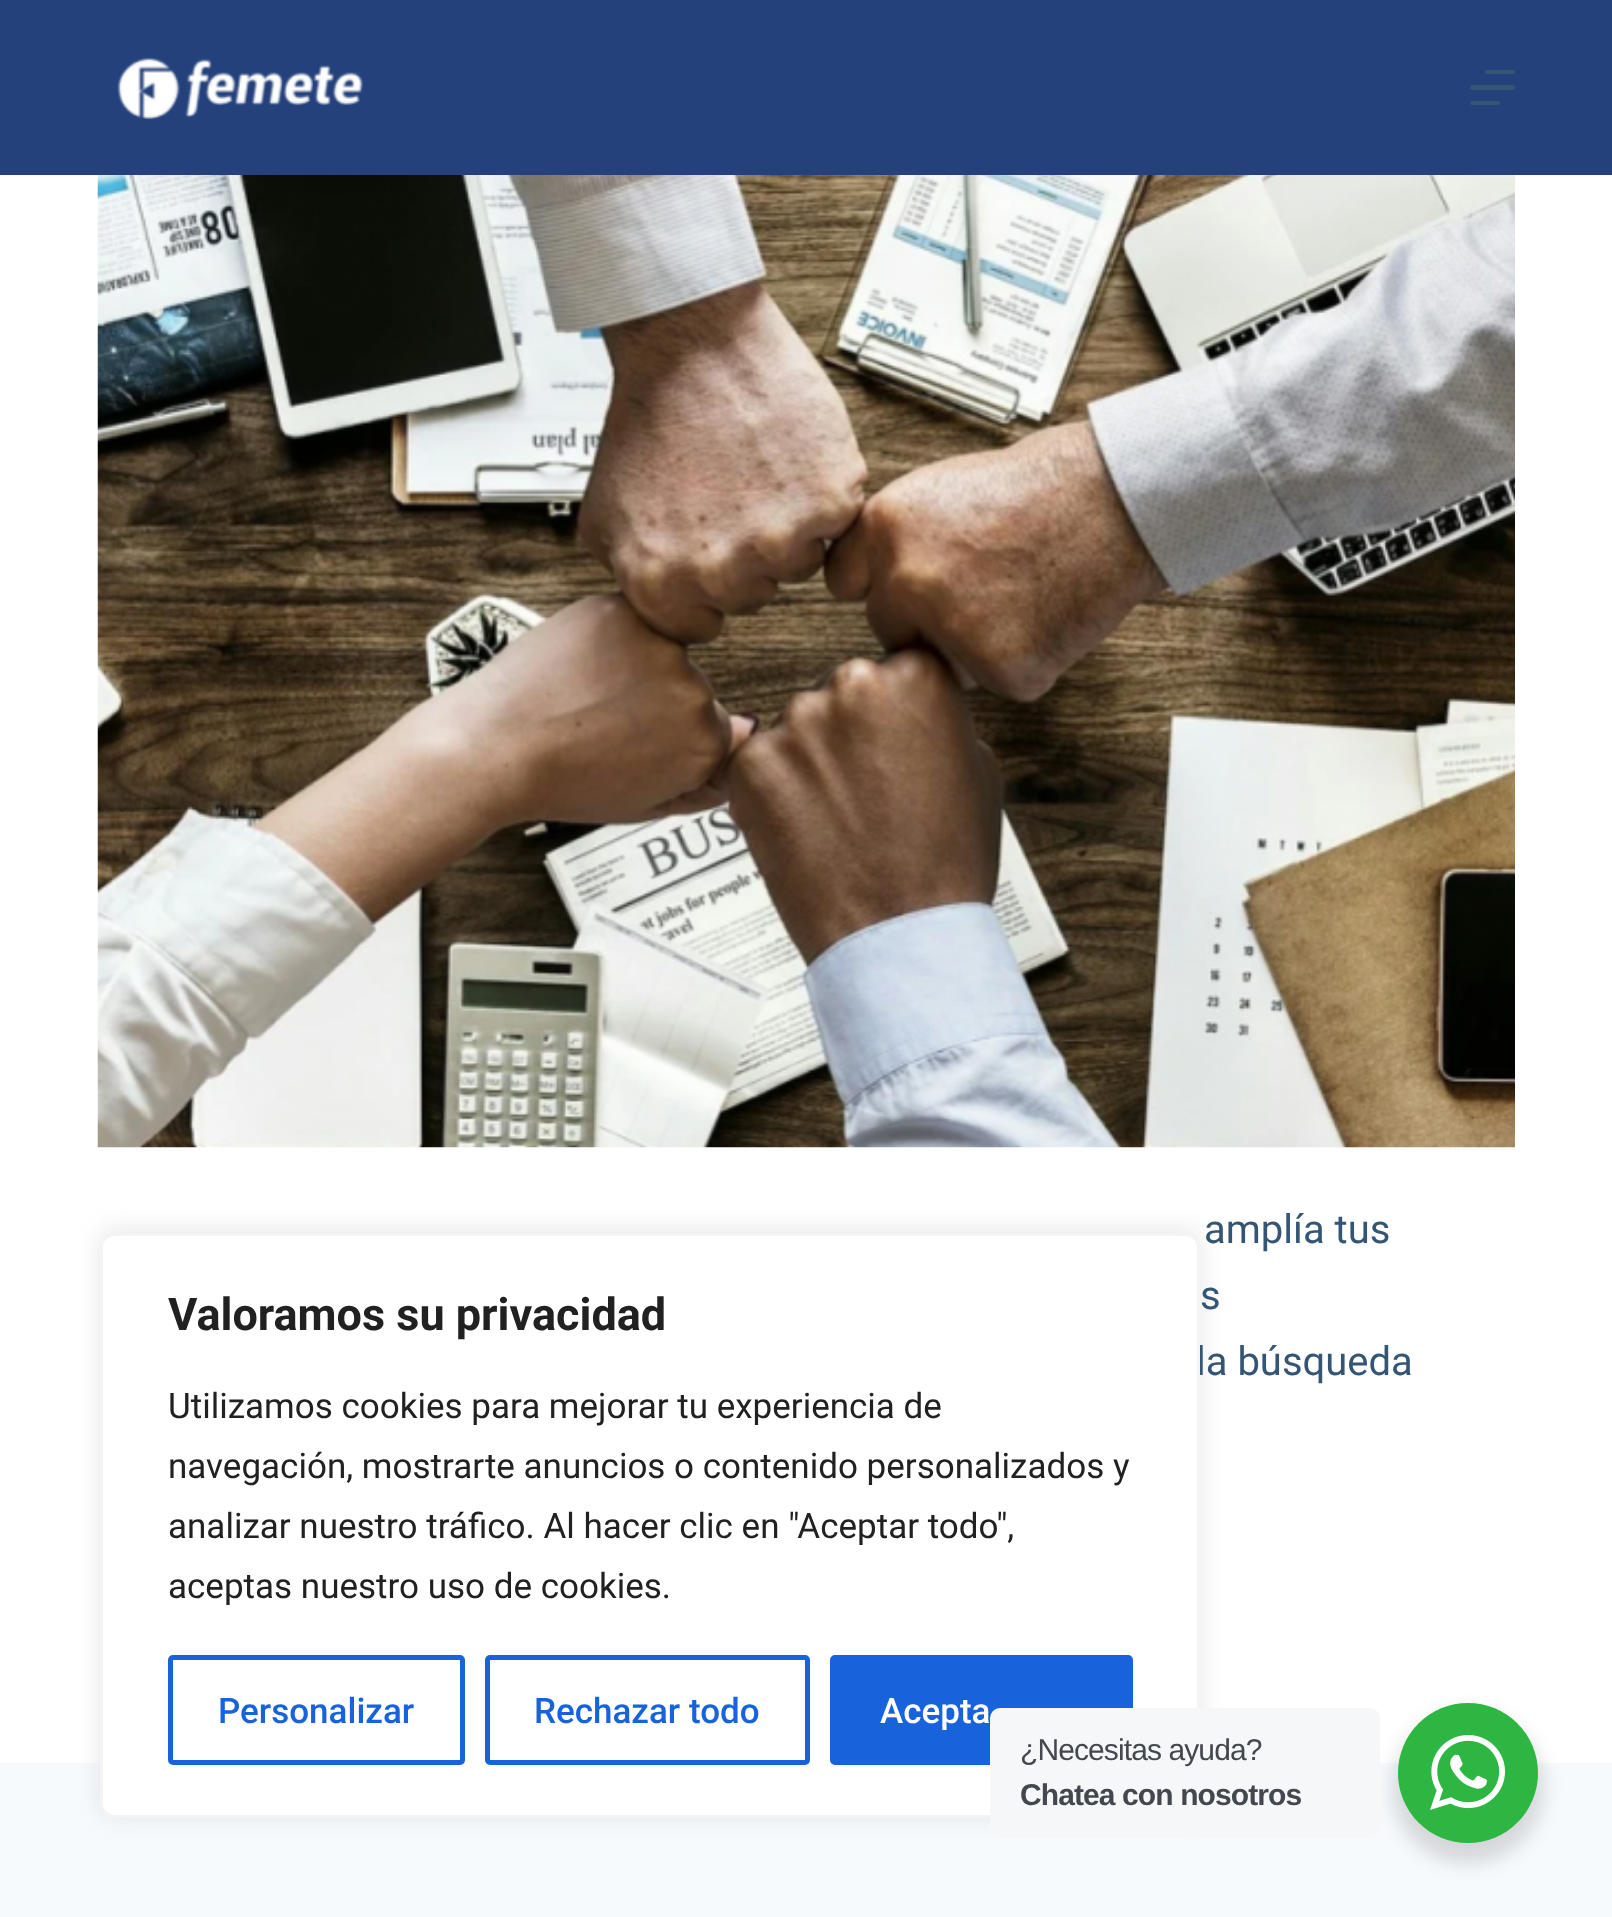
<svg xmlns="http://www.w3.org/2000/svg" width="1612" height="1917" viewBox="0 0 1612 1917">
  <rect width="100%" height="100%" fill="rgb(255,255,255)"/>
  <rect x="0" y="1763" width="1612" height="154" fill="rgb(247,250,253)"/>
  <rect x="100" y="1230" width="1100" height="585" rx="15" fill="rgba(172,171,171,0.3)" filter="blur(12.5px)"/>
  <text x="1196" y="1375" font-family="Roboto" font-size="40" fill="rgb(53,85,117)">la búsqueda</text>
  <rect x="101.5" y="1234.5" width="1097" height="582" rx="13.5" fill="rgb(255,255,255)" stroke="rgb(244,244,244)" stroke-width="3"/>
  <text x="168" y="1330" font-family="Roboto" font-size="45" font-weight="bold" fill="rgb(33,33,33)">Valoramos su privacidad</text>
  <g font-family="Roboto" font-size="35" fill="rgb(33,33,33)">
    <text>
      <tspan x="168" y="1418">Utilizamos cookies para mejorar tu experiencia de</tspan>
      <tspan x="168" y="1478">navegación, mostrarte anuncios o contenido personalizados y</tspan>
      <tspan x="168" y="1538">analizar nuestro tráfico. Al hacer clic en "Aceptar todo",</tspan>
      <tspan x="168" y="1598">aceptas nuestro uso de cookies.</tspan>
    </text>
  </g>
  <rect x="170.5" y="1657.5" width="292" height="105" rx="2.5" fill="none" stroke="rgb(24,99,220)" stroke-width="5"/>
  <text x="218" y="1723" font-family="Roboto" font-size="35" font-weight="500" fill="rgb(24,99,220)">Personalizar</text>
  <rect x="487.5" y="1657.5" width="320" height="105" rx="2.5" fill="none" stroke="rgb(24,99,220)" stroke-width="5"/>
  <text x="534" y="1723" font-family="Roboto" font-size="35" font-weight="500" fill="rgb(24,99,220)">Rechazar todo</text>
  <rect x="832.5" y="1657.5" width="298" height="105" rx="2.5" fill="rgb(24,99,220)" stroke="rgb(24,99,220)" stroke-width="5"/>
  <text x="880" y="1723" font-family="Roboto" font-size="35" font-weight="500" fill="rgb(255,255,255)">Acepta</text>
  <rect x="0" y="0" width="1612" height="175" fill="rgb(36,65,124)"/>
  <image x="117" y="57" width="246" height="63" href="pic1.png"/>
  <rect x="1485" y="70" width="30" height="4" rx="2" fill="rgb(53,85,117)"/>
  <rect x="1470" y="85" width="45" height="5" rx="2.5" fill="rgb(53,85,117)"/>
  <rect x="1470" y="101" width="30" height="4" rx="2" fill="rgb(53,85,117)"/>
  <image x="97" y="175" width="1418" height="973" href="pic2.png"/>
  <g font-family="Roboto" font-size="40" fill="rgb(53,85,117)">
    <text x="1204" y="1243">amplía tus</text>
    <text x="1200" y="1309">s</text>
  </g>
  <rect x="1393" y="1713" width="150" height="150" rx="75" fill="rgba(0,0,0,0.14)" filter="blur(10px)"/>
  <rect x="990" y="1708" width="390" height="130" rx="10" fill="rgb(245,247,249)"/>
  <text x="1020" y="1760" font-family="Liberation Sans" font-size="30" letter-spacing="-0.9" fill="rgb(67,71,78)">¿Necesitas ayuda?</text>
  <text x="1020" y="1805" font-family="Liberation Sans" font-size="30" font-weight="bold" letter-spacing="-0.9" fill="rgb(67,71,78)">Chatea con nosotros</text>
  <circle cx="1468" cy="1773" r="70" fill="rgb(45,183,66)"/>
  <image x="1430" y="1735" width="75" height="75" href="pic3.png"/>
</svg>
